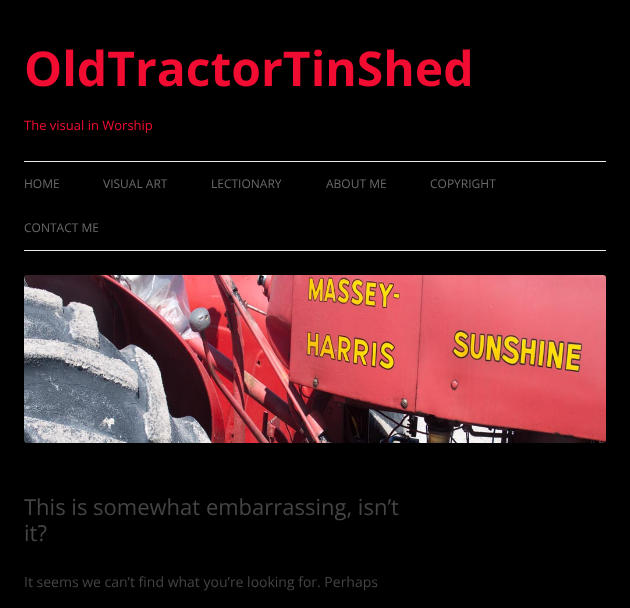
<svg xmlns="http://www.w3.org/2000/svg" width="630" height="608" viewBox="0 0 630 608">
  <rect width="100%" height="100%" fill="rgb(0,0,0)"/>
  <text x="24" y="86" font-family="Open Sans" font-size="48" font-weight="bold" fill="rgb(242,12,50)">OldTractorTinShed</text>
  <text x="24" y="130" font-family="Open Sans" font-size="13" fill="rgb(242,12,50)">The visual in Worship</text>
  <rect x="24" y="161" width="582" height="1" fill="rgb(237,237,237)"/>
  <rect x="24" y="250" width="582" height="1" fill="rgb(237,237,237)"/>
  <g font-family="Open Sans" font-size="12" fill="rgb(106,106,106)">
    <text x="24" y="188">HOME</text>
    <text x="103" y="188">VISUAL ART</text>
    <text x="211" y="188">LECTIONARY</text>
    <text x="326" y="188">ABOUT ME</text>
    <text x="430" y="188">COPYRIGHT</text>
    <text x="24" y="232">CONTACT ME</text>
  </g>
  <image x="24" y="275" width="582" height="168" href="pic1.png"/>
  <g font-family="Open Sans" font-size="22" fill="rgb(68,68,68)">
    <text>
      <tspan x="24" y="515">This is somewhat embarrassing, isn’t</tspan>
      <tspan x="24" y="541">it?</tspan>
    </text>
  </g>
  <text x="24" y="587" font-family="Open Sans" font-size="14" fill="rgb(68,68,68)">It seems we can’t find what you’re looking for. Perhaps</text>
</svg>
